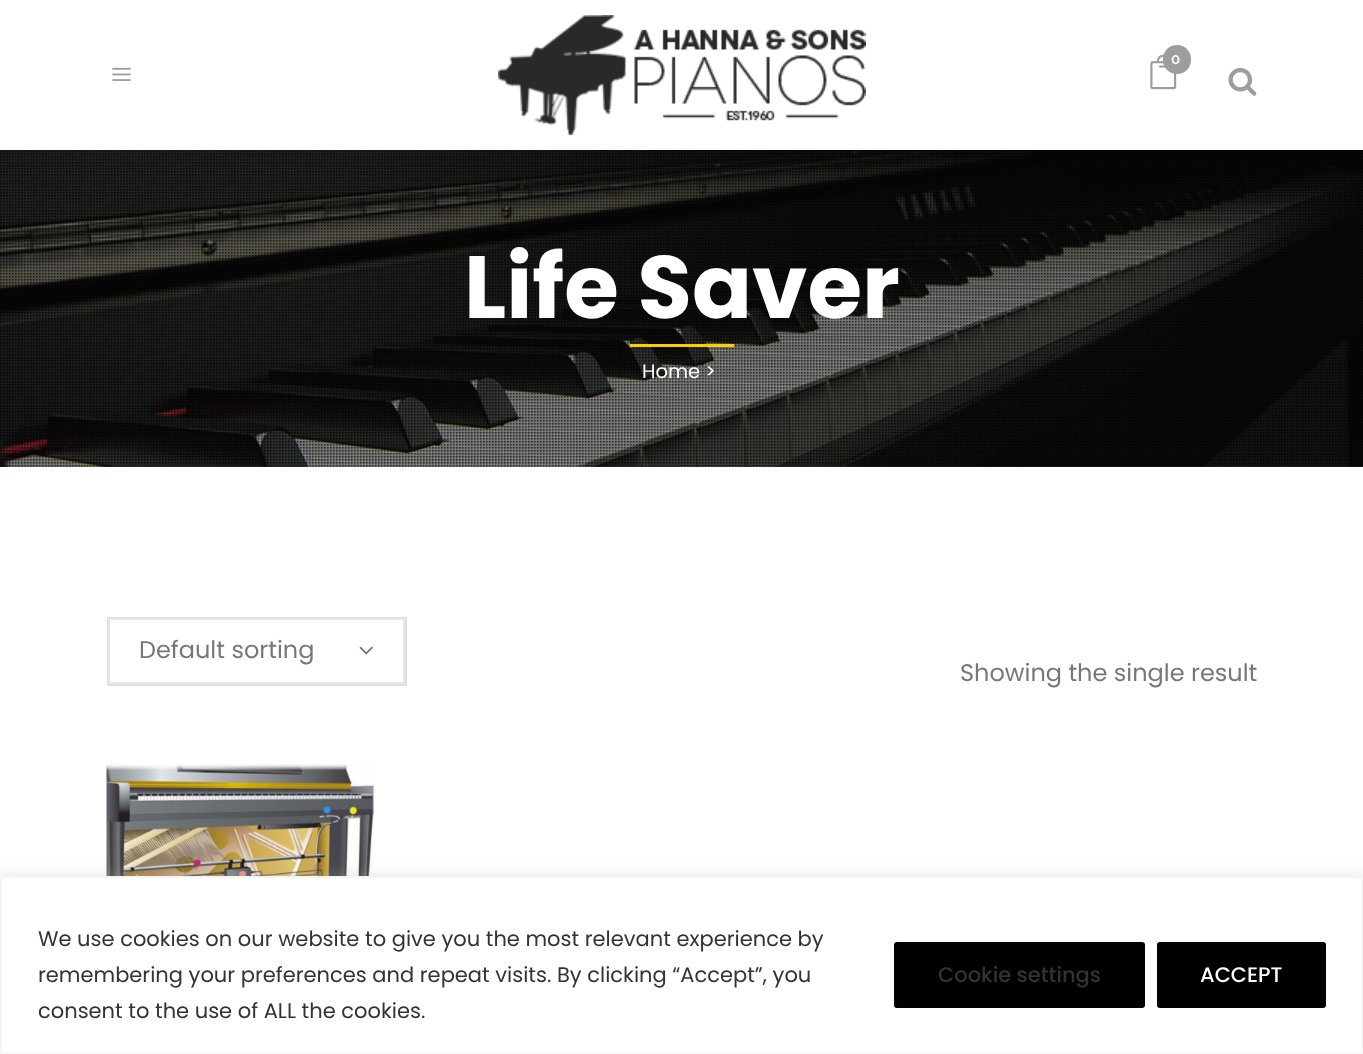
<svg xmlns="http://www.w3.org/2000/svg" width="1363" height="1054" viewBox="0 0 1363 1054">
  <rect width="100%" height="100%" fill="rgb(255,255,255)"/>
  <image x="112" y="67" width="19" height="14" href="pic1.png"/>
  <image x="498" y="15" width="368" height="120" href="pic2.png"/>
  <image x="1150" y="54" width="27" height="36" href="pic3.png"/>
  <rect x="1163" y="45" width="28" height="29" rx="14" fill="rgb(157,157,157)"/>
  <text x="1171" y="64" font-family="Raleway" font-size="15" font-weight="600" fill="rgb(255,255,255)">0</text>
  <image x="1228" y="67" width="29" height="29" href="pic4.png"/>
  <rect x="0" y="466" width="1363" height="1" fill="rgb(48,48,48)"/>
  <image x="0" y="150" width="1363" height="317" href="pic5.png"/>
  <image x="0" y="150" width="1363" height="317" href="pic6.png"/>
  <text x="464" y="318" font-family="Poppins" font-size="88.5" font-weight="bold" fill="rgb(255,255,255)">Life Saver</text>
  <rect x="630" y="344" width="104" height="3" fill="rgb(255,204,0)"/>
  <text x="642" y="378" font-family="Poppins" font-size="19.5" fill="rgb(255,255,255)">Home &gt;</text>
  <rect x="108" y="618" width="298" height="67" fill="none" stroke="rgb(224,222,222)" stroke-width="2"/>
  <rect x="109" y="619" width="295" height="64" fill="none" stroke="rgb(230,230,230)" stroke-width="2"/>
  <text x="139" y="658" font-family="Poppins" font-size="24" fill="rgb(119,119,119)">Default sorting</text>
  <image x="359" y="646" width="14" height="9" href="pic7.png"/>
  <text x="960" y="681" font-family="Poppins" font-size="24" fill="rgb(119,119,119)">Showing the single result</text>
  <image x="106" y="764" width="268" height="112" href="pic8.png"/>
  <rect x="0" y="875" width="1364" height="178" fill="rgba(172,171,171,0.3)" filter="blur(7.5px)"/>
  <rect x="1" y="877" width="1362" height="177" fill="rgb(255,255,255)" stroke="rgb(244,244,244)" stroke-width="2"/>
  <g font-family="Poppins" font-size="21" fill="rgb(51,51,51)">
    <text>
      <tspan x="38" y="946">We use cookies on our website to give you the most relevant experience by</tspan>
      <tspan x="38" y="982">remembering your preferences and repeat visits. By clicking “Accept”, you</tspan>
      <tspan x="38" y="1018">consent to the use of ALL the cookies.</tspan>
    </text>
  </g>
  <rect x="895.5" y="943.5" width="248" height="63" rx="1.5" fill="rgb(0,0,0)" stroke="rgb(0,0,0)" stroke-width="3"/>
  <text x="938" y="982" font-family="Poppins" font-size="21" font-weight="500" fill="rgb(51,51,51)">Cookie settings</text>
  <rect x="1158.5" y="943.5" width="166" height="63" rx="1.5" fill="rgb(0,0,0)" stroke="rgb(0,0,0)" stroke-width="3"/>
  <text x="1200" y="982" font-family="Poppins" font-size="21" font-weight="500" fill="rgb(255,255,255)">ACCEPT</text>
</svg>
